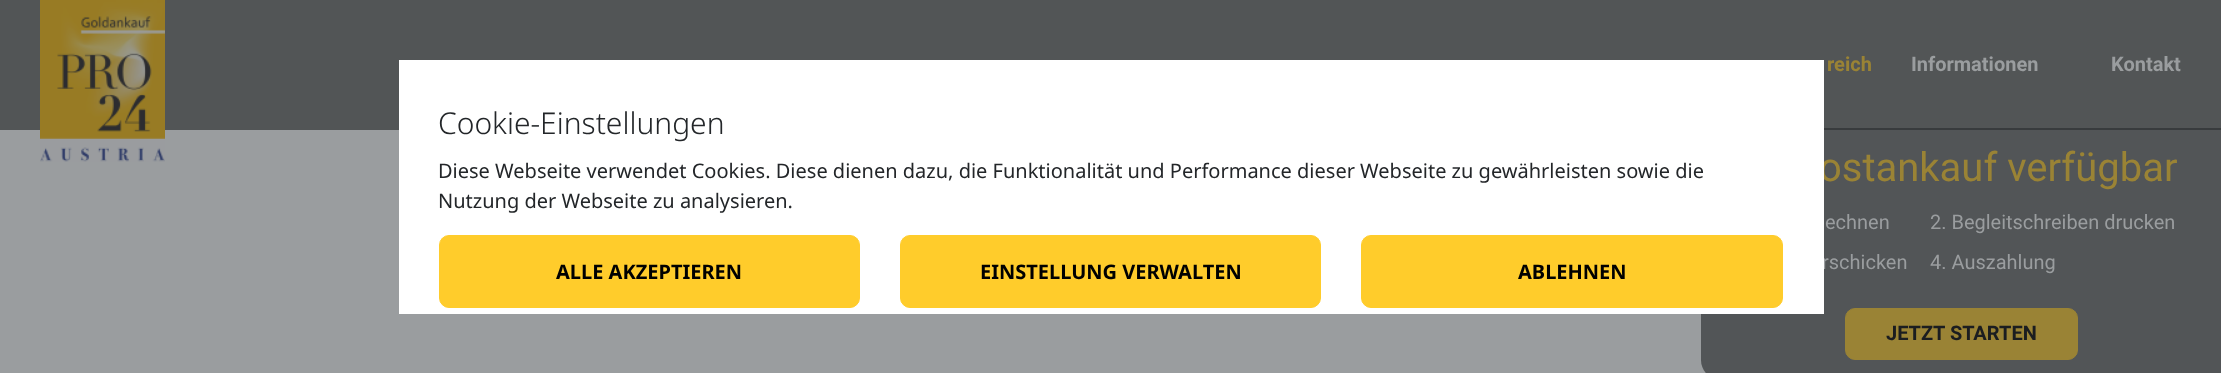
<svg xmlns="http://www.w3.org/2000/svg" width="2221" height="373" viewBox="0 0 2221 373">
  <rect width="100%" height="100%" fill="rgb(154,157,159)"/>
  <path d="M1721 128H2221V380H1721C1710 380 1701 371 1701 360V148C1701 137 1710 128 1721 128Z" fill="rgb(82,85,87)"/>
  <rect x="0" y="0" width="2221" height="130" fill="rgba(43,46,48,0.65)"/>
  <text x="1819" y="181" font-family="Roboto" font-size="40" fill="rgb(154,131,53)">ostankauf verfügbar</text>
  <text x="1822" y="269" font-family="Roboto" font-size="20" fill="rgb(154,157,159)">rschicken</text>
  <rect x="399" y="60" width="1425" height="254" fill="rgb(255,255,255)"/>
  <text x="438" y="134" font-family="Noto Sans" font-size="30" font-weight="300" fill="rgb(35,38,41)">Cookie-Einstellungen</text>
  <g font-family="Noto Sans" font-size="20" fill="rgb(35,38,41)">
    <text>
      <tspan x="438" y="178">Diese Webseite verwendet Cookies. Diese dienen dazu, die Funktionalität und Performance dieser Webseite zu gewährleisten sowie die</tspan>
      <tspan x="438" y="208">Nutzung der Webseite zu analysieren.</tspan>
    </text>
  </g>
  <rect x="439.5" y="235.5" width="420" height="72" rx="9.5" fill="rgb(255,204,43)" stroke="rgb(255,204,43)"/>
  <text x="556" y="279" font-family="Noto Sans" font-size="20" font-weight="bold" fill="rgb(0,0,0)">ALLE AKZEPTIEREN</text>
  <rect x="900.5" y="235.5" width="420" height="72" rx="9.5" fill="rgb(255,204,43)" stroke="rgb(255,204,43)"/>
  <text x="980" y="279" font-family="Noto Sans" font-size="20" font-weight="bold" fill="rgb(0,0,0)">EINSTELLUNG VERWALTEN</text>
  <rect x="1361.5" y="235.5" width="421" height="72" rx="9.5" fill="rgb(255,204,43)" stroke="rgb(255,204,43)"/>
  <text x="1518" y="279" font-family="Noto Sans" font-size="20" font-weight="bold" fill="rgb(0,0,0)">ABLEHNEN</text>
  <image x="40" y="0" width="125" height="162" href="pic1.png"/>
  <text x="1827" y="71" font-family="Roboto" font-size="20" font-weight="bold" fill="rgb(154,131,53)">reich</text>
  <g font-family="Roboto" font-size="20" font-weight="bold" fill="rgb(154,157,159)">
    <text x="1911" y="71">Informationen</text>
    <text x="2111" y="71">Kontakt</text>
  </g>
  <g font-family="Roboto" font-size="20" fill="rgb(154,157,159)">
    <text x="1825" y="229">echnen</text>
    <text x="1930" y="229">2. Begleitschreiben drucken</text>
    <text x="1930" y="269">4. Auszahlung</text>
  </g>
  <rect x="1845.5" y="308.5" width="232" height="51" rx="9.5" fill="rgb(154,131,53)" stroke="rgb(154,131,53)"/>
  <text x="1886" y="340" font-family="Roboto" font-size="20" font-weight="bold" fill="rgb(27,29,32)">JETZT STARTEN</text>
</svg>
